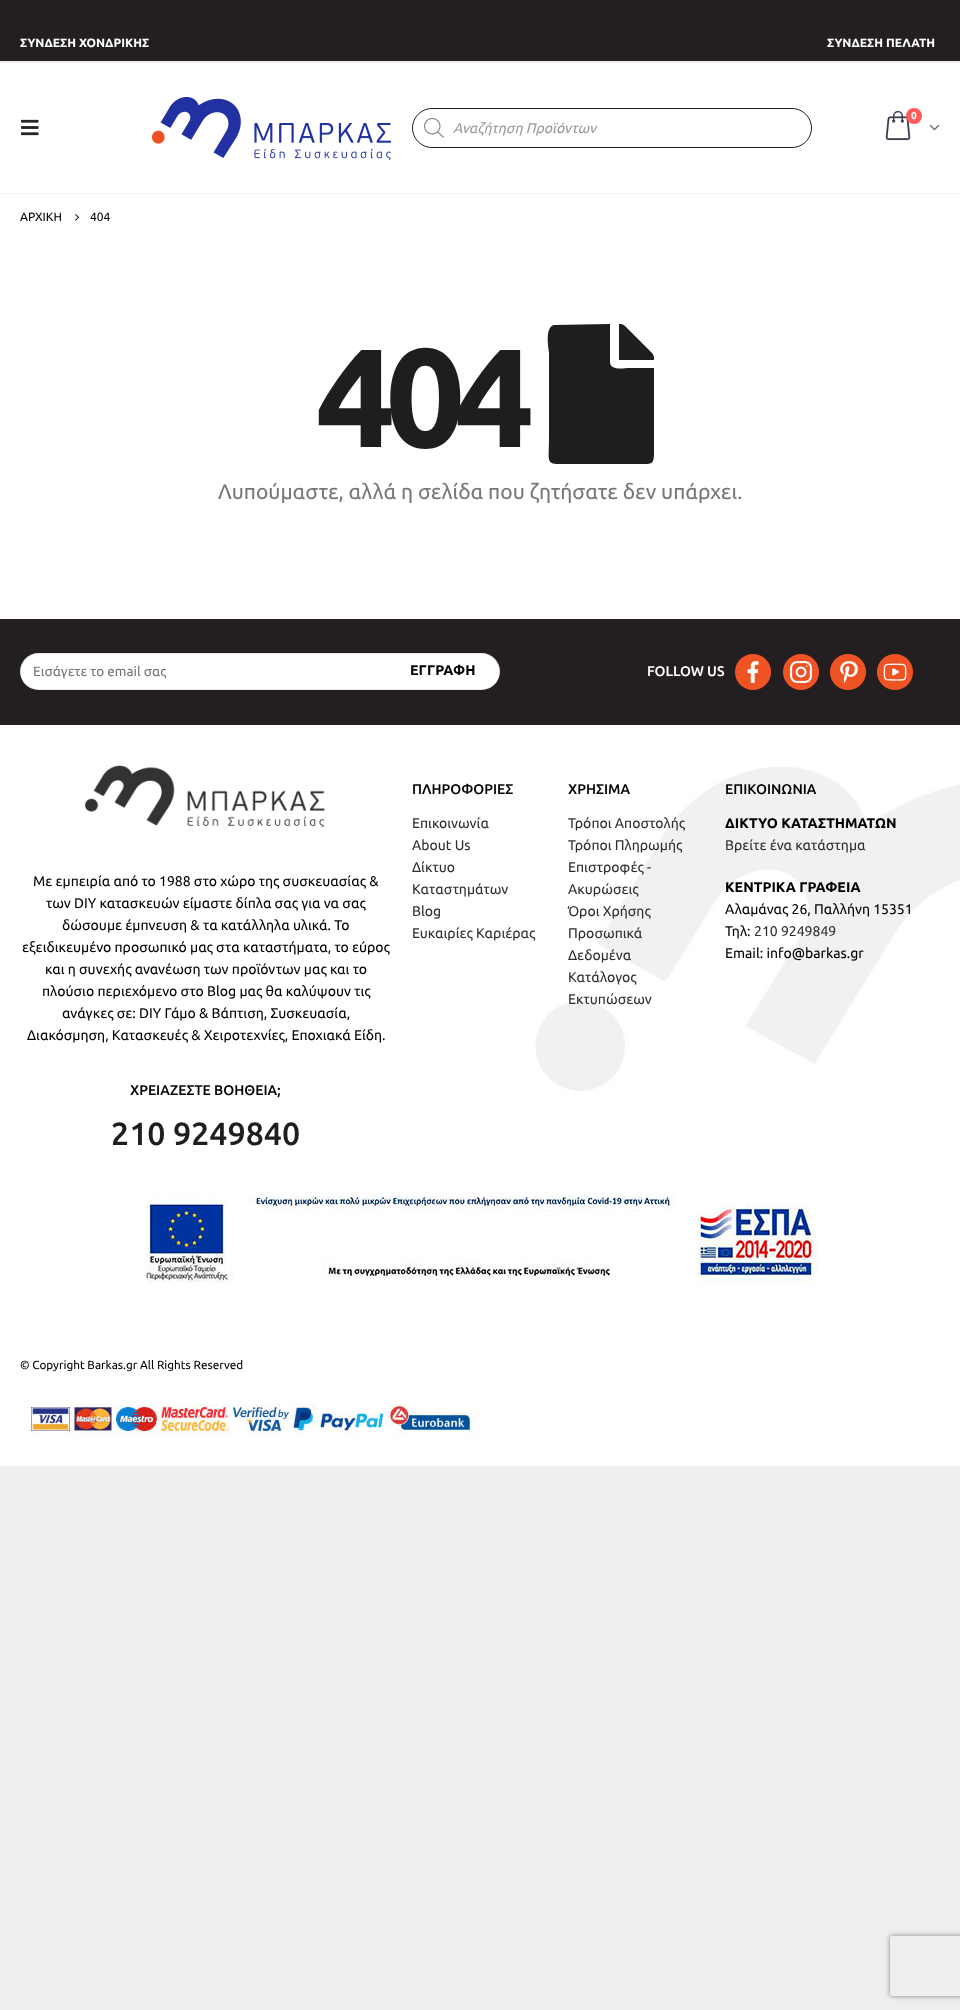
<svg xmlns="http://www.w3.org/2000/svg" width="960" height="2010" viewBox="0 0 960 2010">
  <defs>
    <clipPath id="clip1"><path d="M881 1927H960V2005H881ZM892 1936H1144C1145 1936 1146 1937 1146 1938V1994C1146 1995 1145 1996 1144 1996H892C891 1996 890 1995 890 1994V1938C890 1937 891 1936 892 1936Z" clip-rule="evenodd"/></clipPath>
  </defs>
  <rect width="100%" height="100%" fill="rgb(238,238,238)"/>
  <rect x="0" y="63" width="960" height="1403" fill="rgb(255,255,255)"/>
  <rect x="0" y="0" width="960" height="61" fill="rgb(35,31,32)"/>
  <g font-family="Ubuntu" font-size="12" font-weight="bold" fill="rgb(255,255,255)">
    <text x="20" y="47">ΣΥΝΔΕΣΗ ΧΟΝΔΡΙΚΗΣ</text>
    <text x="827" y="47">ΣΥΝΔΕΣΗ ΠΕΛΑΤΗ</text>
  </g>
  <image x="885" y="111" width="26" height="30" href="pic1.png"/>
  <circle cx="914" cy="116" r="8" fill="rgb(255,91,91)"/>
  <text x="911" y="119" font-family="Ubuntu" font-size="10" font-weight="bold" fill="rgb(255,255,255)">0</text>
  <image x="929" y="124" width="11" height="7" href="pic2.png"/>
  <image x="21" y="119" width="18" height="17" href="pic3.png"/>
  <image x="152" y="97" width="239" height="63" href="pic4.png"/>
  <rect x="412.5" y="108.5" width="399" height="39" rx="19.5" fill="none" stroke="rgb(30,30,30)"/>
  <image x="424" y="118" width="20" height="20" href="pic5.png"/>
  <text x="453" y="133" font-family="Ubuntu" font-size="14" font-style="italic" fill="rgb(153,153,153)">Αναζήτηση Προϊόντων</text>
  <rect x="0" y="193" width="960" height="1" fill="rgb(243,243,243)"/>
  <text x="20" y="221" font-family="Ubuntu" font-size="12" fill="rgb(0,0,0)">ΑΡΧΙΚΗ</text>
  <image x="75" y="214" width="4" height="7" href="pic6.png"/>
  <text x="90" y="221" font-family="Ubuntu" font-size="12" fill="rgb(0,0,0)">404</text>
  <text x="316" y="447" font-family="Ubuntu" font-size="140" font-weight="bold" letter-spacing="-10" fill="rgb(30,30,30)">404</text>
  <path d="M610 362C610 371 624 368 629 368H654V443C654 467 656 464 632 464H571C544 464 549 466 549 437V352C549 351 544 327 554 325L610 324ZM654 358V360H619V324H621C622 324 624 325 625 326L652 353C653 354 654 356 654 358Z" fill="rgb(30,30,30)"/>
  <text x="218" y="499" font-family="Ubuntu" font-size="21" fill="rgb(119,119,119)">Λυπούμαστε, αλλά η σελίδα που ζητήσατε δεν υπάρχει.</text>
  <rect x="0" y="619" width="960" height="106" fill="rgb(35,31,32)"/>
  <rect x="20" y="653" width="480" height="37" rx="18.5" fill="rgb(255,255,255)"/>
  <rect x="20.5" y="653.5" width="479" height="36" rx="18" fill="none" stroke="rgba(0,0,0,0.09)"/>
  <text x="33" y="676" font-family="Ubuntu" font-size="13.5" fill="rgb(119,119,119)">Εισάγετε το email σας</text>
  <rect x="483" y="654" width="3" height="1" fill="rgb(255,255,255)"/>
  <text x="410" y="675" font-family="Ubuntu" font-size="14" font-weight="bold" fill="rgb(0,0,0)">ΕΓΓΡΑΦΗ</text>
  <text x="647" y="676" font-family="Ubuntu" font-size="14" font-weight="500" fill="rgb(255,255,255)">FOLLOW US</text>
  <image x="735" y="654" width="36" height="36" href="pic7.png"/>
  <image x="783" y="654" width="36" height="36" href="pic8.png"/>
  <image x="830" y="654" width="36" height="36" href="pic9.png"/>
  <image x="877" y="654" width="36" height="36" href="pic10.png"/>
  <image x="535" y="767" width="425" height="324" href="pic11.png"/>
  <image x="85" y="765" width="240" height="63" href="pic12.png"/>
  <g font-family="Ubuntu" font-size="14" fill="rgb(0,0,0)">
    <text x="33" y="886">Με εμπειρία από το 1988 στο χώρο της συσκευασίας &amp;</text>
    <text x="46" y="908">των DIY κατασκευών είμαστε δίπλα σας για να σας</text>
    <text x="62" y="930">δώσουμε έμπνευση &amp; τα κατάλληλα υλικά. Το</text>
    <text x="22" y="952">εξειδικευμένο προσωπικό μας στα καταστήματα, το εύρος</text>
    <text x="45" y="974">και η συνεχής ανανέωση των προϊόντων μας και το</text>
    <text x="42" y="996">πλούσιο περιεχόμενο στο Blog μας θα καλύψουν τις</text>
    <text x="62" y="1018">ανάγκες σε: DIY Γάμο &amp; Βάπτιση, Συσκευασία,</text>
    <text x="27" y="1040">Διακόσμηση, Κατασκευές &amp; Χειροτεχνίες, Εποχιακά Είδη.</text>
  </g>
  <text x="130" y="1095" font-family="Ubuntu" font-size="14" font-weight="500" fill="rgb(0,0,0)">ΧΡΕΙΑΖΕΣΤΕ ΒΟΗΘΕΙΑ;</text>
  <text x="111" y="1145" font-family="Ubuntu" font-size="32" font-weight="500" fill="rgb(30,30,30)">210 9249840</text>
  <text x="412" y="794" font-family="Ubuntu" font-size="14" font-weight="500" fill="rgb(0,0,0)">ΠΛΗΡΟΦΟΡΙΕΣ</text>
  <g font-family="Ubuntu" font-size="14" fill="rgb(47,47,47)">
    <text>
      <tspan x="412" y="828">Επικοινωνία</tspan>
      <tspan x="412" y="850">About Us</tspan>
      <tspan x="412" y="872">Δίκτυο</tspan>
      <tspan x="412" y="894">Καταστημάτων</tspan>
      <tspan x="412" y="916">Blog</tspan>
      <tspan x="412" y="938">Ευκαιρίες Καριέρας</tspan>
    </text>
  </g>
  <text x="568" y="794" font-family="Ubuntu" font-size="14" font-weight="500" fill="rgb(0,0,0)">ΧΡΗΣΙΜΑ</text>
  <g font-family="Ubuntu" font-size="14" fill="rgb(47,47,47)">
    <text>
      <tspan x="568" y="828">Τρόποι Αποστολής</tspan>
      <tspan x="568" y="850">Τρόποι Πληρωμής</tspan>
      <tspan x="568" y="872">Επιστροφές -</tspan>
      <tspan x="568" y="894">Ακυρώσεις</tspan>
      <tspan x="568" y="916">Όροι Χρήσης</tspan>
      <tspan x="568" y="938">Προσωπικά</tspan>
      <tspan x="568" y="960">Δεδομένα</tspan>
      <tspan x="568" y="982">Κατάλογος</tspan>
      <tspan x="568" y="1004">Εκτυπώσεων</tspan>
    </text>
  </g>
  <text x="725" y="794" font-family="Ubuntu" font-size="14" font-weight="500" fill="rgb(0,0,0)">ΕΠΙΚΟΙΝΩΝΙΑ</text>
  <text x="725" y="828" font-family="Ubuntu" font-size="14" font-weight="bold" fill="rgb(0,0,0)">ΔΙΚΤΥΟ ΚΑΤΑΣΤΗΜΑΤΩΝ</text>
  <text x="725" y="850" font-family="Ubuntu" font-size="14" fill="rgb(47,47,47)">Βρείτε ένα κατάστημα</text>
  <text x="725" y="892" font-family="Ubuntu" font-size="14" font-weight="bold" fill="rgb(0,0,0)">ΚΕΝΤΡΙΚΑ ΓΡΑΦΕΙΑ</text>
  <g font-family="Ubuntu" font-size="14" fill="rgb(0,0,0)">
    <text>
      <tspan x="725" y="914">Αλαμάνας 26, Παλλήνη 15351</tspan>
      <tspan x="725" y="936">Τηλ:</tspan>
    </text>
  </g>
  <text x="754" y="936" font-family="Ubuntu" font-size="14" fill="rgb(47,47,47)">210 9249849</text>
  <text x="725" y="958" font-family="Ubuntu" font-size="14" fill="rgb(0,0,0)">Email: info@barkas.gr</text>
  <image x="146" y="1196" width="672" height="88" href="pic13.png"/>
  <text x="20" y="1369" font-family="Ubuntu" font-size="11.75" fill="rgb(0,0,0)">© Copyright Barkas.gr All Rights Reserved</text>
  <image x="28" y="1404" width="448" height="32" href="pic14.png"/>
  <g clip-path="url(#clip1)">
    <rect x="890" y="1936" width="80" height="60" rx="2" fill="rgb(128,128,128)" filter="blur(2.5px)"/>
  </g>
</svg>
